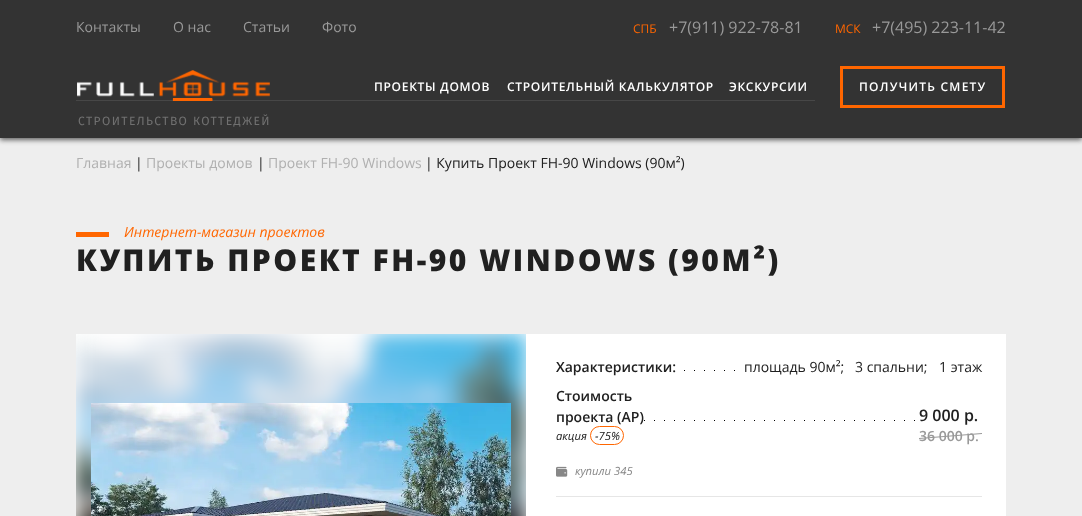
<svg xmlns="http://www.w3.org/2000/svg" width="1082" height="516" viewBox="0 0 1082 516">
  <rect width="100%" height="100%" fill="rgb(238,238,238)"/>
  <rect x="0" y="2" width="1082" height="138" fill="rgba(50,50,50,0.75)" filter="blur(2.5px)"/>
  <rect x="0" y="0" width="1082" height="138" fill="rgb(51,51,51)"/>
  <g font-family="Open Sans" font-size="14" fill="rgb(153,153,153)">
    <text x="76" y="32">Контакты</text>
    <text x="173" y="32">О нас</text>
    <text x="243" y="32">Статьи</text>
    <text x="322" y="32">Фото</text>
  </g>
  <text x="633" y="33" font-family="Open Sans" font-size="12" fill="rgb(255,102,0)">СПБ</text>
  <text x="669" y="33" font-family="Open Sans" font-size="16" fill="rgb(153,153,153)">+7(911) 922-78-81</text>
  <text x="835" y="33" font-family="Open Sans" font-size="12" fill="rgb(255,102,0)">МСК</text>
  <text x="872" y="33" font-family="Open Sans" font-size="16" fill="rgb(153,153,153)">+7(495) 223-11-42</text>
  <rect x="76" y="100" width="739" height="1" fill="rgb(71,71,71)"/>
  <rect x="173" y="98" width="39" height="3" fill="rgb(255,102,0)"/>
  <image x="77" y="70" width="193" height="31" href="pic1.png"/>
  <g font-family="Open Sans" font-size="12" font-weight="600" letter-spacing="0.7" fill="rgb(255,255,255)">
    <text x="374" y="91">ПРОЕКТЫ ДОМОВ</text>
    <text x="507" y="91">СТРОИТЕЛЬНЫЙ КАЛЬКУЛЯТОР</text>
    <text x="729" y="91">ЭКСКУРСИИ</text>
  </g>
  <rect x="841.5" y="67.5" width="162" height="39" fill="none" stroke="rgb(255,102,0)" stroke-width="3"/>
  <text x="859" y="91" font-family="Open Sans" font-size="12" font-weight="600" letter-spacing="1.25" fill="rgb(255,255,255)">ПОЛУЧИТЬ СМЕТУ</text>
  <text x="78" y="125" font-family="Fira Sans" font-size="12" letter-spacing="1.4" fill="rgb(112,112,112)">СТРОИТЕЛЬСТВО КОТТЕДЖЕЙ</text>
  <text x="76" y="168" font-family="Open Sans" font-size="14" fill="rgb(176,176,176)">Главная</text>
  <text x="135" y="168" font-family="Open Sans" font-size="14" fill="rgb(32,32,32)">|</text>
  <text x="146" y="168" font-family="Open Sans" font-size="14" fill="rgb(176,176,176)">Проекты домов</text>
  <text x="257" y="168" font-family="Open Sans" font-size="14" fill="rgb(32,32,32)">|</text>
  <text x="268" y="168" font-family="Open Sans" font-size="14" fill="rgb(176,176,176)">Проект FH-90 Windows</text>
  <text x="425" y="168" font-family="Open Sans" font-size="14" fill="rgb(32,32,32)">| Купить Проект FH-90 Windows (90м²)</text>
  <rect x="76" y="232" width="33" height="5" fill="rgb(255,102,0)"/>
  <text x="124" y="237" font-family="Open Sans" font-size="14" font-style="italic" fill="rgb(255,102,0)">Интернет-магазин проектов</text>
  <text x="76" y="271" font-family="Open Sans" font-size="30" font-weight="800" letter-spacing="2.5" fill="rgb(32,32,32)">КУПИТЬ ПРОЕКТ FH-90 WINDOWS (90М²)</text>
  <rect x="76" y="334" width="930" height="182" fill="rgb(255,255,255)"/>
  <image x="76" y="334" width="450" height="182" href="pic2.png"/>
  <image x="91" y="403" width="420" height="113" href="pic3.png"/>
  <image x="684" y="370" width="51" height="1" href="pic4.png"/>
  <text x="556" y="372" font-family="Open Sans" font-size="14" font-weight="600" fill="rgb(32,32,32)">Характеристики:</text>
  <g font-family="Open Sans" font-size="14" fill="rgb(32,32,32)">
    <text x="744" y="372">площадь 90м²;</text>
    <text x="855" y="372">3 спальни;</text>
    <text x="939" y="372">1 этаж</text>
  </g>
  <image x="644" y="420" width="271" height="1" href="pic5.png"/>
  <g font-family="Open Sans" font-size="14" font-weight="600" fill="rgb(32,32,32)">
    <text>
      <tspan x="556" y="401">Стоимость</tspan>
      <tspan x="556" y="422">проекта (АР)</tspan>
    </text>
  </g>
  <text x="919" y="421" font-family="Open Sans" font-size="16" font-weight="600" fill="rgb(32,32,32)">9 000 р.</text>
  <text x="919" y="441" font-family="Open Sans" font-size="14" font-weight="600" fill="rgb(153,153,153)">36 000 р.</text>
  <path d="M919 438L982 433V434L919 439Z" fill="rgb(153,153,153)"/>
  <text x="556" y="440" font-family="Open Sans" font-size="11.25" font-style="italic" fill="rgb(32,32,32)">акция</text>
  <rect x="590.5" y="426.5" width="33" height="18" rx="9" fill="none" stroke="rgb(255,102,0)"/>
  <text x="595" y="440" font-family="Open Sans" font-size="11.25" font-style="italic" fill="rgb(32,32,32)">-75%</text>
  <image x="556" y="466" width="12" height="11" href="pic6.png"/>
  <text x="575" y="475" font-family="Open Sans" font-size="11.25" font-style="italic" fill="rgb(135,135,135)">купили 345</text>
  <rect x="556" y="496" width="426" height="1" fill="rgb(230,230,230)"/>
</svg>
